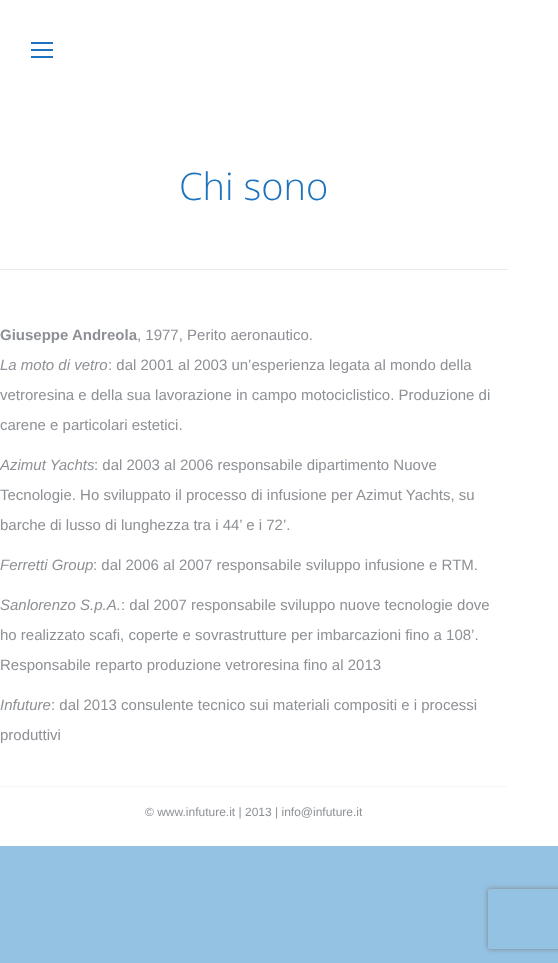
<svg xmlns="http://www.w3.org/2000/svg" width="558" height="963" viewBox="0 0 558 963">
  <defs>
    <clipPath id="clip1"><path d="M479 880H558V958H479ZM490 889H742C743 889 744 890 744 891V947C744 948 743 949 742 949H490C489 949 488 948 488 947V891C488 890 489 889 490 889Z" clip-rule="evenodd"/></clipPath>
  </defs>
  <rect width="100%" height="100%" fill="rgb(148,194,227)"/>
  <rect x="0" y="0" width="558" height="846" fill="rgb(255,255,255)"/>
  <rect x="31" y="42" width="22" height="2" fill="rgb(30,115,190)"/>
  <rect x="31" y="49" width="22" height="2" fill="rgb(30,115,190)"/>
  <rect x="31" y="56" width="22" height="2" fill="rgb(30,115,190)"/>
  <text x="179" y="200" font-family="Open Sans" font-size="38" font-weight="300" fill="rgb(30,115,190)">Chi sono</text>
  <rect x="0" y="269" width="508" height="1" fill="rgb(233,233,233)"/>
  <text x="0" y="340" font-family="Liberation Sans" font-size="15" font-weight="bold" fill="rgb(141,144,149)">Giuseppe Andreola</text>
  <text x="137" y="340" font-family="Liberation Sans" font-size="15" fill="rgb(141,144,149)">, 1977, Perito aeronautico.</text>
  <text x="0" y="370" font-family="Liberation Sans" font-size="15" font-style="italic" fill="rgb(141,144,149)">La moto di vetro</text>
  <g font-family="Liberation Sans" font-size="15" fill="rgb(141,144,149)">
    <text x="108" y="370">: dal 2001 al 2003 un’esperienza legata al mondo della</text>
    <text x="0" y="400">vetroresina e della sua lavorazione in campo motociclistico. Produzione di</text>
    <text x="0" y="430">carene e particolari estetici.</text>
  </g>
  <text x="0" y="470" font-family="Liberation Sans" font-size="15" font-style="italic" fill="rgb(141,144,149)">Azimut Yachts</text>
  <g font-family="Liberation Sans" font-size="15" fill="rgb(141,144,149)">
    <text x="94" y="470">: dal 2003 al 2006 responsabile dipartimento Nuove</text>
    <text x="0" y="500">Tecnologie. Ho sviluppato il processo di infusione per Azimut Yachts, su</text>
    <text x="0" y="530">barche di lusso di lunghezza tra i 44’ e i 72’.</text>
  </g>
  <text x="0" y="570" font-family="Liberation Sans" font-size="15" font-style="italic" fill="rgb(141,144,149)">Ferretti Group</text>
  <text x="93" y="570" font-family="Liberation Sans" font-size="15" fill="rgb(141,144,149)">: dal 2006 al 2007 responsabile sviluppo infusione e RTM.</text>
  <text x="0" y="610" font-family="Liberation Sans" font-size="15" font-style="italic" fill="rgb(141,144,149)">Sanlorenzo S.p.A.</text>
  <g font-family="Liberation Sans" font-size="15" fill="rgb(141,144,149)">
    <text x="121" y="610">: dal 2007 responsabile sviluppo nuove tecnologie dove</text>
    <text x="0" y="640">ho realizzato scafi, coperte e sovrastrutture per imbarcazioni fino a 108’.</text>
    <text x="0" y="670">Responsabile reparto produzione vetroresina fino al 2013</text>
  </g>
  <text x="0" y="710" font-family="Liberation Sans" font-size="15" font-style="italic" fill="rgb(141,144,149)">Infuture</text>
  <g font-family="Liberation Sans" font-size="15" fill="rgb(141,144,149)">
    <text x="51" y="710">: dal 2013 consulente tecnico sui materiali compositi e i processi</text>
    <text x="0" y="740">produttivi</text>
  </g>
  <rect x="0" y="786" width="508" height="1" fill="rgb(247,247,248)"/>
  <text x="145" y="816" font-family="Liberation Sans" font-size="12" fill="rgb(141,144,149)">© www.infuture.it | 2013 | info@infuture.it</text>
  <g clip-path="url(#clip1)">
    <rect x="488" y="889" width="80" height="60" rx="2" fill="rgb(128,128,128)" filter="blur(2.5px)"/>
  </g>
</svg>
